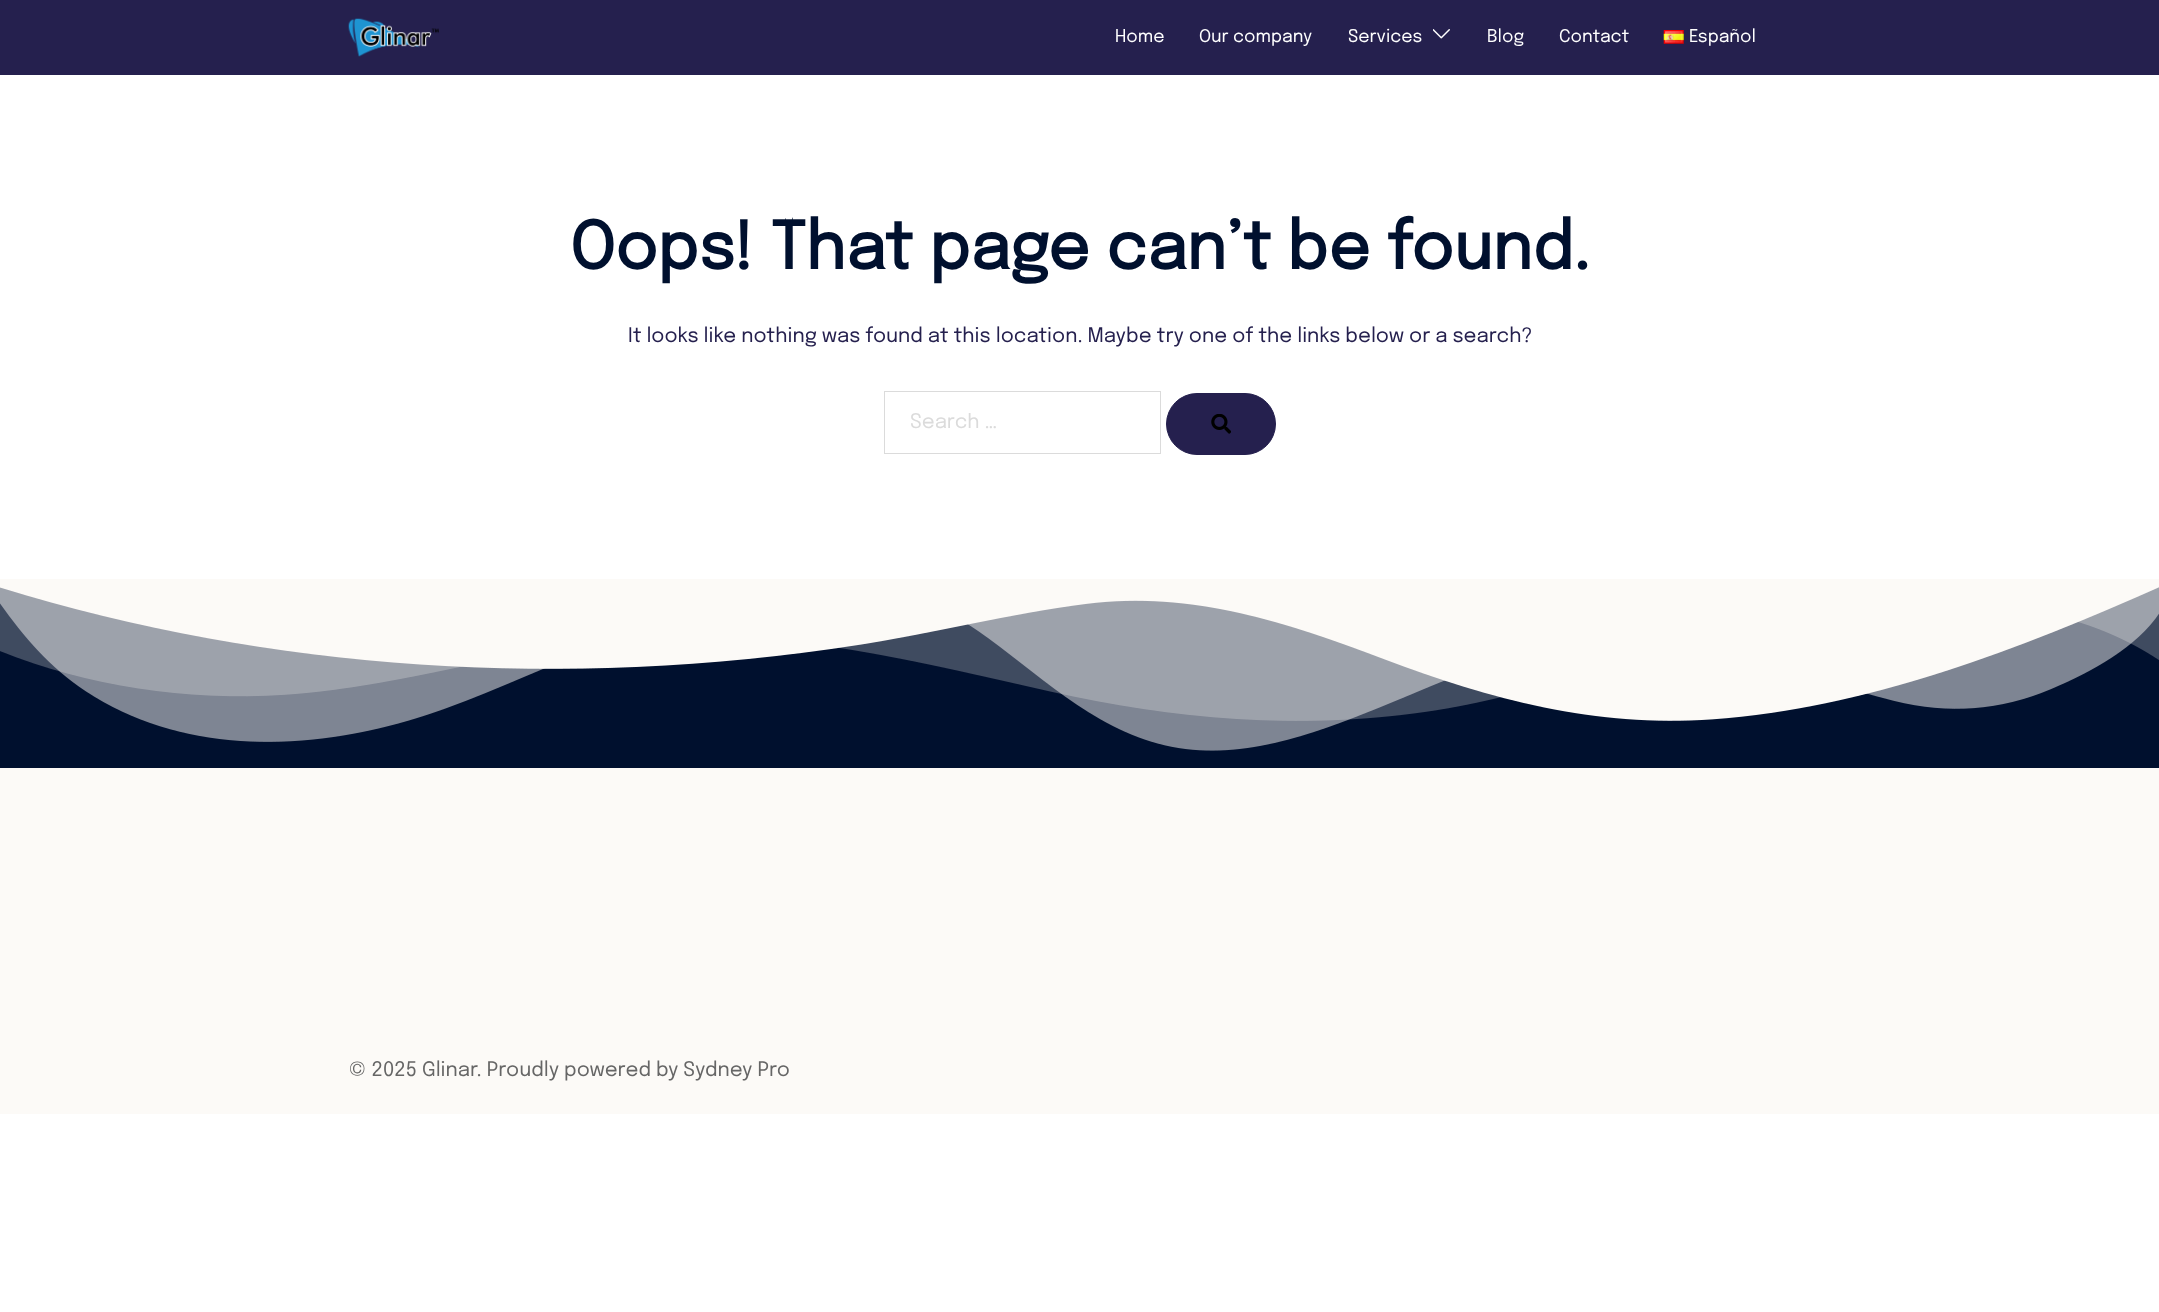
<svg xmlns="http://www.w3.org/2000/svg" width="2159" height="1312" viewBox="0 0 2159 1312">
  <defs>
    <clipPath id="clip1"><rect x="910" y="413" width="206" height="21"/></clipPath>
  </defs>
  <rect width="100%" height="100%" fill="rgb(255,255,255)"/>
  <rect x="0" y="0" width="2159" height="75" fill="rgb(37,32,78)"/>
  <image x="348" y="18" width="91" height="39" href="pic1.png"/>
  <g font-family="Epilogue" font-size="17.5" fill="rgb(255,255,255)">
    <text x="1115" y="42">Home</text>
    <text x="1199" y="42">Our company</text>
    <text x="1348" y="42">Services</text>
  </g>
  <image x="1433" y="29" width="17" height="10" href="pic2.png"/>
  <g font-family="Epilogue" font-size="17.5" fill="rgb(255,255,255)">
    <text x="1487" y="42">Blog</text>
    <text x="1559" y="42">Contact</text>
  </g>
  <image x="1663" y="30" width="21" height="14" href="pic3.png"/>
  <text x="1689" y="42" font-family="Epilogue" font-size="17.5" fill="rgb(255,255,255)">Español</text>
  <text x="570" y="269" font-family="Epilogue" font-size="65" font-weight="bold" fill="rgb(0,16,46)">Oops! That page can’t be found.</text>
  <text x="628" y="342" font-family="Epilogue" font-size="20" fill="rgb(37,32,78)">It looks like nothing was found at this location. Maybe try one of the links below or a search?</text>
  <rect x="884.5" y="391.5" width="276" height="62" fill="none" stroke="rgb(219,219,219)"/>
  <g clip-path="url(#clip1)">
    <text x="910" y="428" font-family="Epilogue" font-size="20" fill="rgb(219,219,219)">Search …</text>
  </g>
  <rect x="1166.5" y="393.5" width="109" height="61" rx="30.5" fill="rgb(37,32,78)" stroke="rgb(37,32,78)"/>
  <image x="1211" y="414" width="20" height="20" href="pic4.png"/>
  <rect x="0" y="587" width="2159" height="181" fill="rgb(0,16,46)"/>
  <image x="0" y="579" width="2159" height="172" href="pic5.png"/>
  <rect x="0" y="768" width="2159" height="346" fill="rgb(252,250,247)"/>
  <text x="349" y="1076" font-family="Epilogue" font-size="20" fill="rgb(102,102,102)">© 2025 Glinar. Proudly powered by Sydney Pro</text>
</svg>
